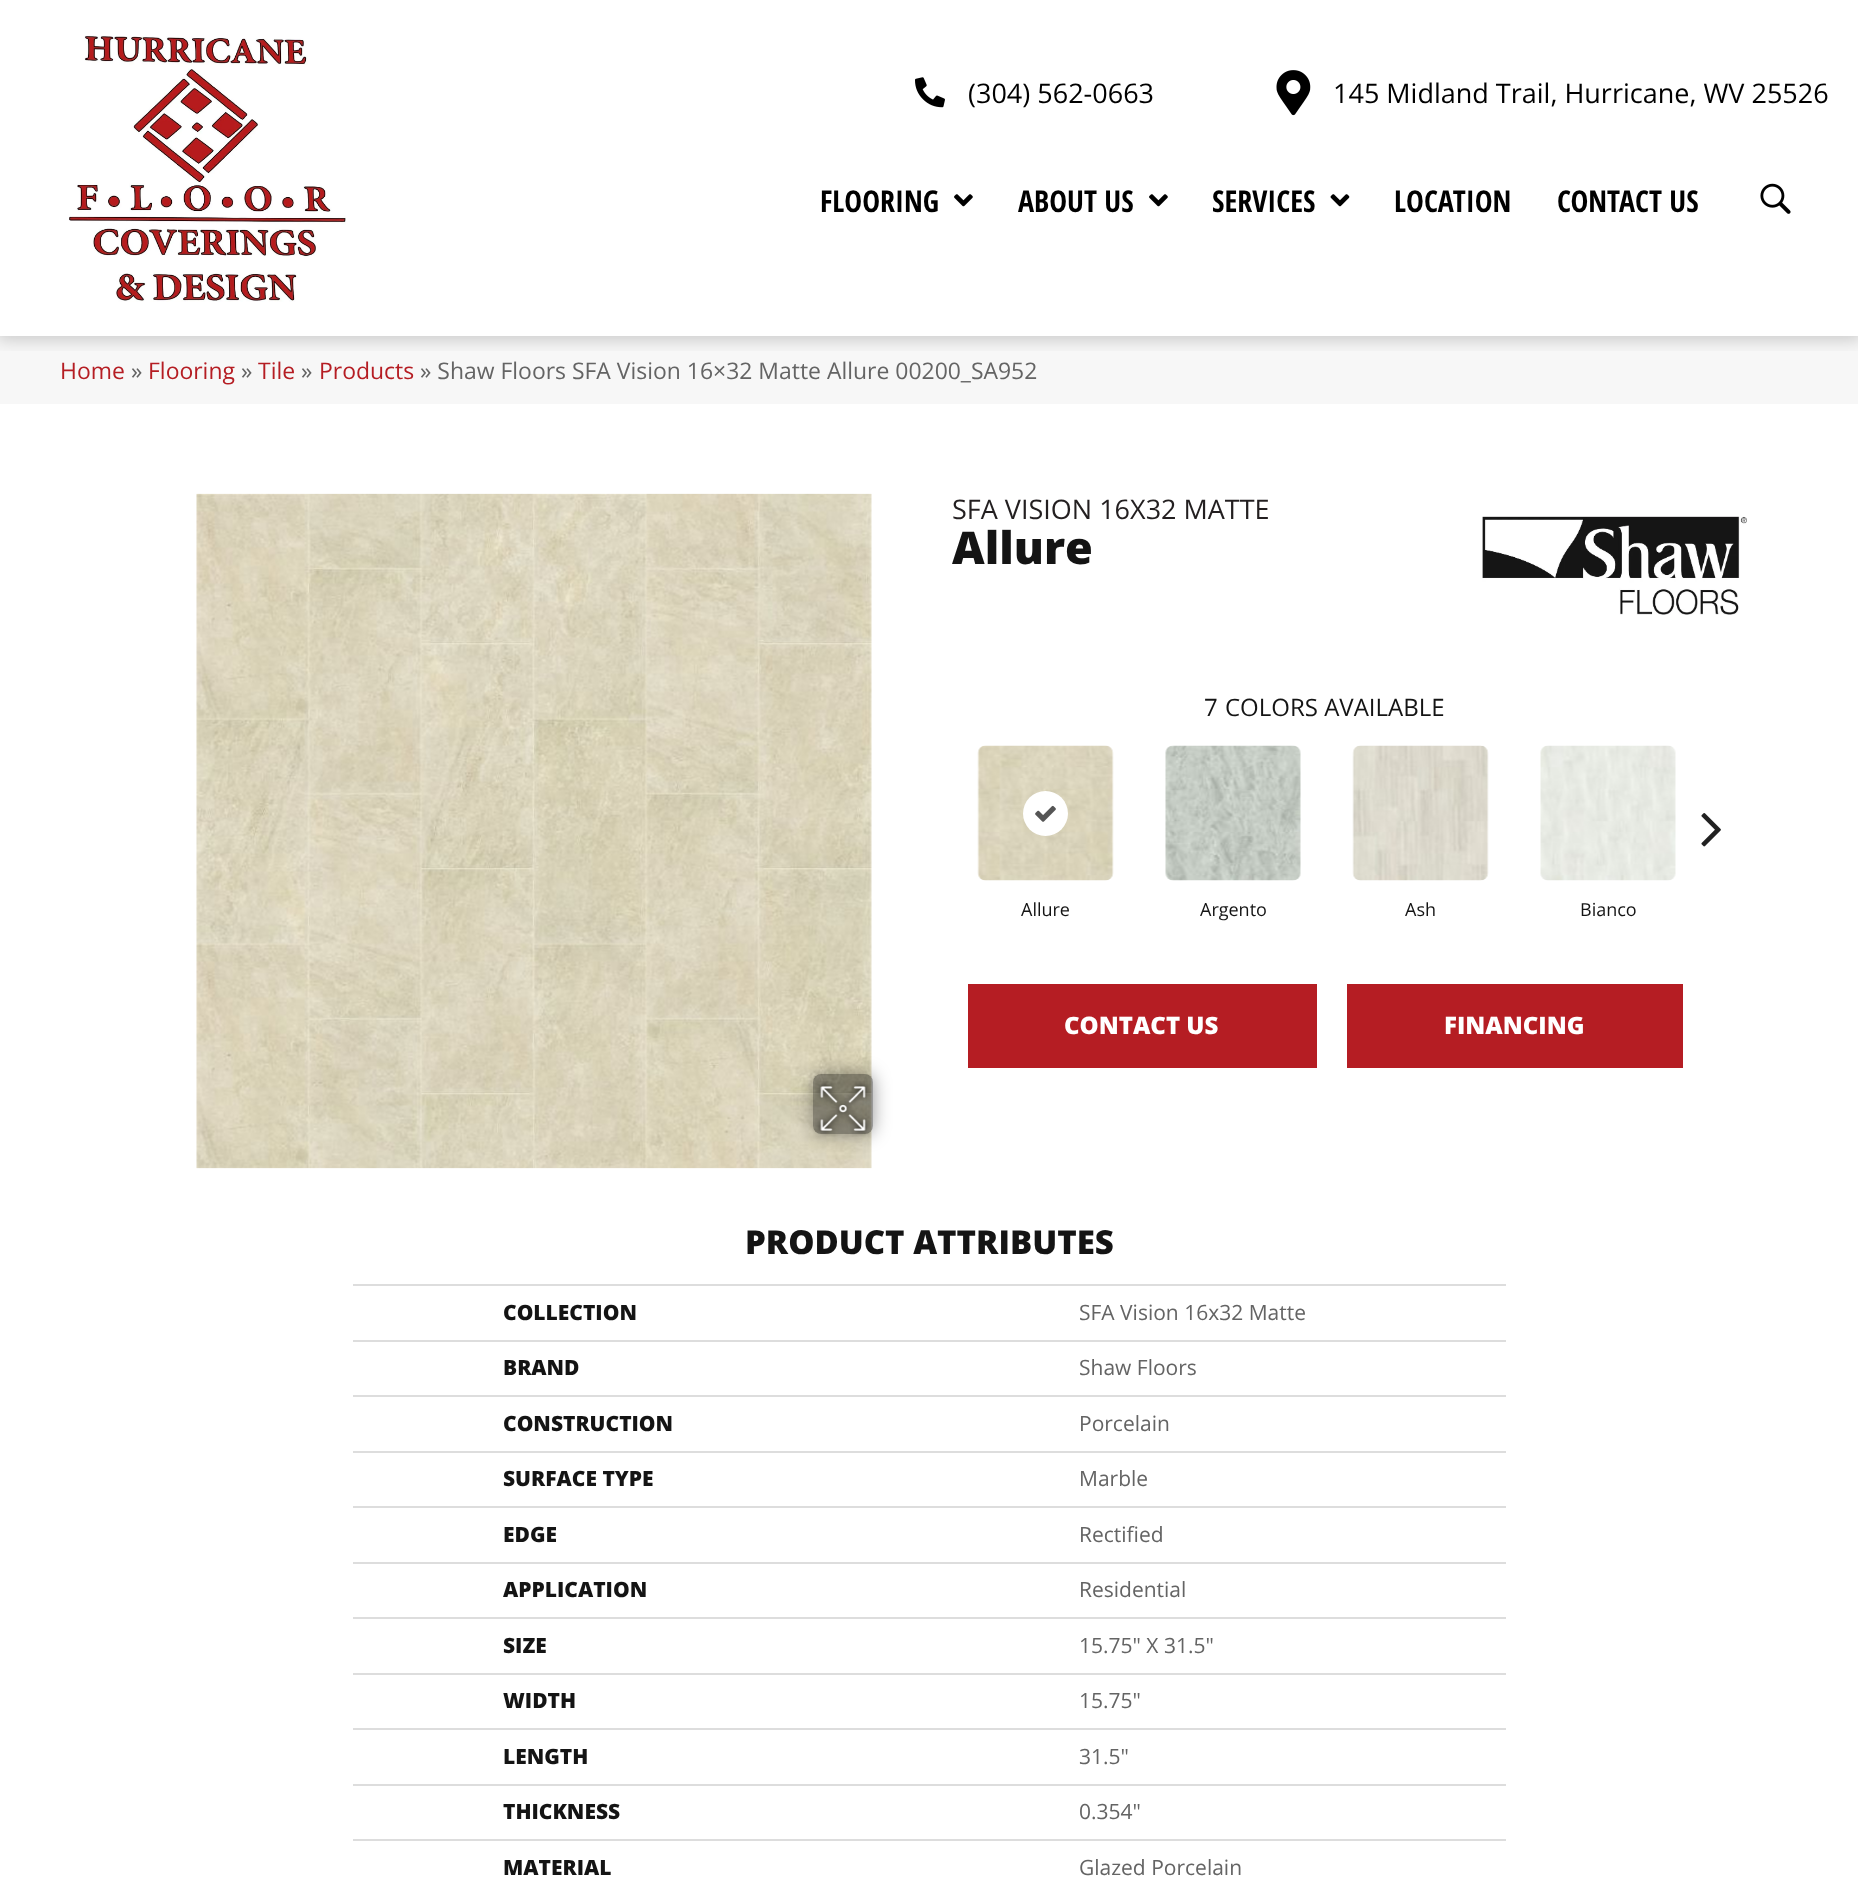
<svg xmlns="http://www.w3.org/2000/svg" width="1858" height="1885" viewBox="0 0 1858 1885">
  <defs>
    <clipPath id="clip1"><rect x="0" y="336" width="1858" height="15"/></clipPath>
    <clipPath id="clip2"><path d="M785 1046H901V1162H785ZM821 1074H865C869.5 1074 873 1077.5 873 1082V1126C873 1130.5 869.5 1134 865 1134H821C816.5 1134 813 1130.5 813 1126V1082C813 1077.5 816.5 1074 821 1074Z" clip-rule="evenodd"/></clipPath>
  </defs>
  <rect width="100%" height="100%" fill="rgb(255,255,255)"/>
  <rect x="0" y="336" width="1858" height="68" fill="rgb(247,247,247)"/>
  <g clip-path="url(#clip1)">
    <rect x="-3" y="-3" width="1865" height="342" fill="rgba(0,0,0,0.2)" filter="blur(9px)"/>
  </g>
  <image x="69" y="35" width="277" height="267" href="pic1.png"/>
  <image x="915" y="77" width="30" height="31" href="pic2.png"/>
  <text x="968" y="103" font-family="Open Sans" font-size="27" fill="rgb(0,0,0)">(304) 562-0663</text>
  <image x="1276" y="70" width="35" height="46" href="pic3.png"/>
  <text x="1333" y="103" font-family="Open Sans" font-size="27" fill="rgb(0,0,0)">145 Midland Trail, Hurricane, WV 25526</text>
  <text x="820" y="212" font-family="Open Sans Condensed" font-size="30" font-weight="bold" fill="rgb(0,0,0)">FLOORING</text>
  <image x="954" y="194" width="19" height="13" href="pic4.png"/>
  <text x="1018" y="212" font-family="Open Sans Condensed" font-size="30" font-weight="bold" fill="rgb(0,0,0)">ABOUT US</text>
  <image x="1149" y="194" width="19" height="13" href="pic4.png"/>
  <text x="1212" y="212" font-family="Open Sans Condensed" font-size="30" font-weight="bold" fill="rgb(0,0,0)">SERVICES</text>
  <image x="1330" y="194" width="20" height="13" href="pic5.png"/>
  <g font-family="Open Sans Condensed" font-size="30" font-weight="bold" fill="rgb(0,0,0)">
    <text x="1394" y="212">LOCATION</text>
    <text x="1557" y="212">CONTACT US</text>
  </g>
  <image x="1760" y="183" width="31" height="31" href="pic6.png"/>
  <text x="60" y="379" font-family="Open Sans" font-size="22.95" fill="rgb(181,29,35)">Home</text>
  <text x="131" y="379" font-family="Open Sans" font-size="22.95" fill="rgb(100,100,100)">»</text>
  <text x="148" y="379" font-family="Open Sans" font-size="22.95" fill="rgb(181,29,35)">Flooring</text>
  <text x="241" y="379" font-family="Open Sans" font-size="22.95" fill="rgb(100,100,100)">»</text>
  <text x="258" y="379" font-family="Open Sans" font-size="22.95" fill="rgb(181,29,35)">Tile</text>
  <text x="301" y="379" font-family="Open Sans" font-size="22.95" fill="rgb(100,100,100)">»</text>
  <text x="319" y="379" font-family="Open Sans" font-size="22.95" fill="rgb(181,29,35)">Products</text>
  <text x="420" y="379" font-family="Open Sans" font-size="22.95" fill="rgb(100,100,100)">» Shaw Floors SFA Vision 16×32 Matte Allure 00200_SA952</text>
  <image x="196" y="493" width="676" height="676" href="pic7.png"/>
  <g clip-path="url(#clip2)">
    <rect x="813" y="1074" width="60" height="60" rx="8" fill="rgba(0,0,0,0.41)" filter="blur(9px)"/>
  </g>
  <rect x="813" y="1074" width="60" height="60" rx="8" fill="rgba(0,0,0,0.4)"/>
  <image x="815" y="1081" width="56" height="56" href="pic8.png"/>
  <text x="952" y="519" font-family="Open Sans" font-size="27" fill="rgb(35,31,32)">SFA VISION 16X32 MATTE</text>
  <text x="952" y="564" font-family="Open Sans" font-size="45" font-weight="800" fill="rgb(20,20,20)">Allure</text>
  <image x="1482" y="516" width="265" height="99" href="pic9.png"/>
  <g font-family="Open Sans" font-size="24" fill="rgb(20,20,20)">
    <text x="1204" y="716">7</text>
    <text x="1225" y="716">COLORS AVAILABLE</text>
  </g>
  <image x="1701" y="813" width="20" height="34" href="pic10.png"/>
  <image x="977" y="745" width="137" height="136" href="pic11.png"/>
  <circle cx="1045.5" cy="813.5" r="22.5" fill="rgb(255,255,255)"/>
  <image x="1035" y="805" width="21" height="17" href="pic12.png"/>
  <text x="1021" y="916" font-family="Open Sans" font-size="18" fill="rgb(20,20,20)">Allure</text>
  <image x="1165" y="745" width="136" height="136" href="pic13.png"/>
  <text x="1200" y="916" font-family="Open Sans" font-size="18" fill="rgb(20,20,20)">Argento</text>
  <image x="1352" y="745" width="137" height="136" href="pic14.png"/>
  <text x="1405" y="916" font-family="Open Sans" font-size="18" fill="rgb(20,20,20)">Ash</text>
  <image x="1540" y="745" width="136" height="136" href="pic15.png"/>
  <text x="1580" y="916" font-family="Open Sans" font-size="18" fill="rgb(20,20,20)">Bianco</text>
  <rect x="968" y="984" width="349" height="84" fill="rgb(181,29,35)"/>
  <text x="1064" y="1034" font-family="Open Sans" font-size="24" font-weight="800" fill="rgb(255,255,255)">CONTACT US</text>
  <rect x="1347" y="984" width="336" height="84" fill="rgb(181,29,35)"/>
  <text x="1444" y="1034" font-family="Open Sans" font-size="24" font-weight="800" fill="rgb(255,255,255)">FINANCING</text>
  <text x="745" y="1254" font-family="Open Sans" font-size="33" font-weight="800" fill="rgb(20,20,20)">PRODUCT ATTRIBUTES</text>
  <text x="503" y="1320" font-family="Open Sans" font-size="21" font-weight="800" fill="rgb(20,20,20)">COLLECTION</text>
  <rect x="353" y="1284" width="1153" height="2" fill="rgb(221,221,221)"/>
  <text x="1079" y="1320" font-family="Open Sans" font-size="21" fill="rgb(100,100,100)">SFA Vision 16x32 Matte</text>
  <text x="503" y="1375" font-family="Open Sans" font-size="21" font-weight="800" fill="rgb(20,20,20)">BRAND</text>
  <rect x="353" y="1340" width="1153" height="2" fill="rgb(221,221,221)"/>
  <text x="1079" y="1375" font-family="Open Sans" font-size="21" fill="rgb(100,100,100)">Shaw Floors</text>
  <text x="503" y="1431" font-family="Open Sans" font-size="21" font-weight="800" fill="rgb(20,20,20)">CONSTRUCTION</text>
  <rect x="353" y="1395" width="1153" height="2" fill="rgb(221,221,221)"/>
  <text x="1079" y="1431" font-family="Open Sans" font-size="21" fill="rgb(100,100,100)">Porcelain</text>
  <text x="503" y="1486" font-family="Open Sans" font-size="21" font-weight="800" fill="rgb(20,20,20)">SURFACE TYPE</text>
  <rect x="353" y="1451" width="1153" height="2" fill="rgb(221,221,221)"/>
  <text x="1079" y="1486" font-family="Open Sans" font-size="21" fill="rgb(100,100,100)">Marble</text>
  <text x="503" y="1542" font-family="Open Sans" font-size="21" font-weight="800" fill="rgb(20,20,20)">EDGE</text>
  <rect x="353" y="1506" width="1153" height="2" fill="rgb(221,221,221)"/>
  <text x="1079" y="1542" font-family="Open Sans" font-size="21" fill="rgb(100,100,100)">Rectified</text>
  <text x="503" y="1597" font-family="Open Sans" font-size="21" font-weight="800" fill="rgb(20,20,20)">APPLICATION</text>
  <rect x="353" y="1562" width="1153" height="2" fill="rgb(221,221,221)"/>
  <text x="1079" y="1597" font-family="Open Sans" font-size="21" fill="rgb(100,100,100)">Residential</text>
  <text x="503" y="1653" font-family="Open Sans" font-size="21" font-weight="800" fill="rgb(20,20,20)">SIZE</text>
  <rect x="353" y="1617" width="1153" height="2" fill="rgb(221,221,221)"/>
  <text x="1079" y="1653" font-family="Open Sans" font-size="21" fill="rgb(100,100,100)">15.75" X 31.5"</text>
  <text x="503" y="1708" font-family="Open Sans" font-size="21" font-weight="800" fill="rgb(20,20,20)">WIDTH</text>
  <rect x="353" y="1673" width="1153" height="2" fill="rgb(221,221,221)"/>
  <text x="1079" y="1708" font-family="Open Sans" font-size="21" fill="rgb(100,100,100)">15.75"</text>
  <text x="503" y="1764" font-family="Open Sans" font-size="21" font-weight="800" fill="rgb(20,20,20)">LENGTH</text>
  <rect x="353" y="1728" width="1153" height="2" fill="rgb(221,221,221)"/>
  <text x="1079" y="1764" font-family="Open Sans" font-size="21" fill="rgb(100,100,100)">31.5"</text>
  <text x="503" y="1819" font-family="Open Sans" font-size="21" font-weight="800" fill="rgb(20,20,20)">THICKNESS</text>
  <rect x="353" y="1784" width="1153" height="2" fill="rgb(221,221,221)"/>
  <text x="1079" y="1819" font-family="Open Sans" font-size="21" fill="rgb(100,100,100)">0.354"</text>
  <text x="503" y="1875" font-family="Open Sans" font-size="21" font-weight="800" fill="rgb(20,20,20)">MATERIAL</text>
  <rect x="353" y="1839" width="1153" height="2" fill="rgb(221,221,221)"/>
  <text x="1079" y="1875" font-family="Open Sans" font-size="21" fill="rgb(100,100,100)">Glazed Porcelain</text>
</svg>
